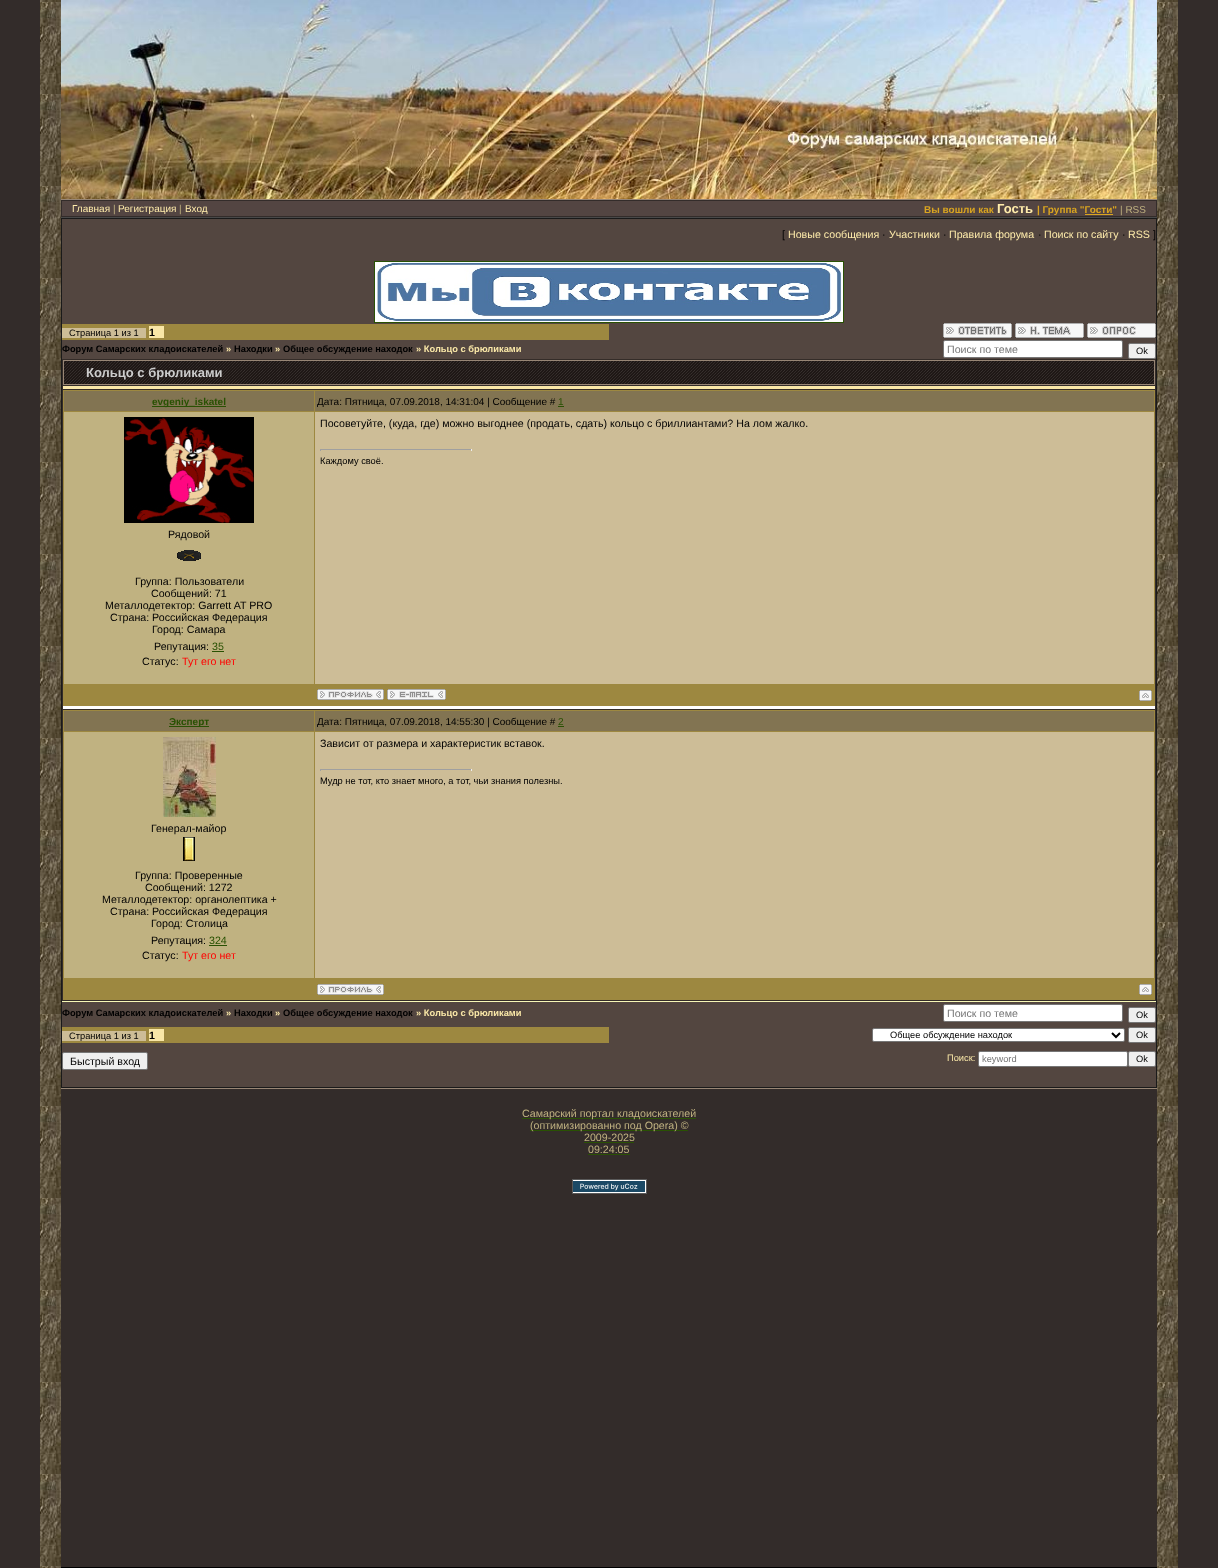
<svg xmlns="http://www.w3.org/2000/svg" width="1218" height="1568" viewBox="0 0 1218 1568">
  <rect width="100%" height="100%" fill="rgb(51,44,42)"/>
  <image x="40" y="0" width="21" height="1568" href="pic1.png"/>
  <rect x="61" y="1567" width="1096" height="1" fill="rgb(0,0,0)"/>
  <rect x="61" y="199" width="1096" height="1" fill="rgb(152,134,117)"/>
  <image x="61" y="0" width="1096" height="199" href="pic2.png"/>
  <rect x="62" y="201" width="1094" height="15" fill="rgb(83,69,66)"/>
  <text x="72" y="212" font-family="Liberation Sans" font-size="10" fill="rgb(255,236,171)">Главная</text>
  <text x="113" y="212" font-family="Liberation Sans" font-size="10" fill="rgb(192,178,129)">|</text>
  <text x="118" y="212" font-family="Liberation Sans" font-size="10" fill="rgb(255,236,171)">Регистрация</text>
  <text x="179" y="212" font-family="Liberation Sans" font-size="10" fill="rgb(192,178,129)">|</text>
  <text x="185" y="212" font-family="Liberation Sans" font-size="10" fill="rgb(255,236,171)">Вход</text>
  <text x="924" y="213" font-family="Liberation Sans" font-size="10" font-weight="bold" fill="rgb(218,165,32)">Вы вошли как</text>
  <text x="997" y="213" font-family="Liberation Sans" font-size="13" font-weight="bold" fill="rgb(255,236,171)">Гость</text>
  <text x="1037" y="213" font-family="Liberation Sans" font-size="10" font-weight="bold" fill="rgb(218,165,32)">| Группа "Гости"</text>
  <rect x="1085" y="214" width="28" height="1" fill="rgb(218,165,32)"/>
  <text x="1120" y="213" font-family="Liberation Sans" font-size="10" fill="rgb(192,178,129)">| RSS</text>
  <rect x="61" y="217" width="1096" height="1" fill="rgb(73,73,73)"/>
  <rect x="61" y="1088" width="1096" height="1" fill="rgb(152,134,117)"/>
  <rect x="61.5" y="218.5" width="1095" height="869" fill="rgb(83,70,64)" stroke="rgb(26,26,26)"/>
  <text x="782" y="238" font-family="Liberation Sans" font-size="10.65" fill="rgb(0,0,0)">[</text>
  <text x="788" y="238" font-family="Liberation Sans" font-size="10.65" fill="rgb(255,236,171)">Новые сообщения</text>
  <text x="882" y="238" font-family="Liberation Sans" font-size="10.65" fill="rgb(0,0,0)">·</text>
  <text x="889" y="238" font-family="Liberation Sans" font-size="10.65" fill="rgb(255,236,171)">Участники</text>
  <text x="943" y="238" font-family="Liberation Sans" font-size="10.65" fill="rgb(0,0,0)">·</text>
  <text x="949" y="238" font-family="Liberation Sans" font-size="10.65" fill="rgb(255,236,171)">Правила форума</text>
  <text x="1038" y="238" font-family="Liberation Sans" font-size="10.65" fill="rgb(0,0,0)">·</text>
  <text x="1044" y="238" font-family="Liberation Sans" font-size="10.65" fill="rgb(255,236,171)">Поиск по сайту</text>
  <text x="1122" y="238" font-family="Liberation Sans" font-size="10.65" fill="rgb(0,0,0)">·</text>
  <text x="1128" y="238" font-family="Liberation Sans" font-size="10.65" fill="rgb(255,236,171)">RSS</text>
  <text x="1153" y="238" font-family="Liberation Sans" font-size="10.65" fill="rgb(0,0,0)">]</text>
  <rect x="374.5" y="261.5" width="469" height="61" fill="none" stroke="rgb(41,81,3)"/>
  <image x="375" y="262" width="468" height="60" href="pic3.png"/>
  <rect x="62" y="324" width="547" height="16" fill="rgb(157,136,64)"/>
  <rect x="62" y="328" width="84" height="10" fill="rgb(205,189,151)"/>
  <text x="69" y="336" font-family="Liberation Sans" font-size="9.3" fill="rgb(0,0,0)">Страница 1 из 1</text>
  <rect x="149" y="326" width="15" height="12" fill="rgb(249,231,167)"/>
  <text x="149" y="336" font-family="Liberation Sans" font-size="10.65" font-weight="bold" fill="rgb(0,0,0)">1</text>
  <image x="943" y="323" width="69" height="15" href="pic4.png"/>
  <image x="1015" y="323" width="69" height="15" href="pic5.png"/>
  <image x="1087" y="323" width="69" height="15" href="pic6.png"/>
  <text x="62" y="352" font-family="Liberation Sans" font-size="9.3" font-weight="bold" fill="rgb(0,0,0)">Форум Самарских кладоискателей</text>
  <text x="226" y="352" font-family="Liberation Sans" font-size="9.3" font-weight="bold" fill="rgb(249,231,167)">»</text>
  <text x="234" y="352" font-family="Liberation Sans" font-size="9.3" font-weight="bold" fill="rgb(0,0,0)">Находки</text>
  <text x="275" y="352" font-family="Liberation Sans" font-size="9.3" font-weight="bold" fill="rgb(249,231,167)">»</text>
  <text x="283" y="352" font-family="Liberation Sans" font-size="9.3" font-weight="bold" fill="rgb(0,0,0)">Общее обсуждение находок</text>
  <text x="416" y="352" font-family="Liberation Sans" font-size="9.3" font-weight="bold" fill="rgb(249,231,167)">» Кольцо с брюликами</text>
  <rect x="943.5" y="340.5" width="179" height="17" rx="1.5" fill="rgb(255,255,255)" stroke="rgb(118,118,118)"/>
  <text x="947" y="353" font-family="Liberation Sans" font-size="10.65" fill="rgb(117,117,117)">Поиск по теме</text>
  <rect x="1128.5" y="343.5" width="27" height="15" rx="1.5" fill="rgb(239,239,239)" stroke="rgb(118,118,118)"/>
  <text x="1136" y="354" font-family="Liberation Sans" font-size="9.3" fill="rgb(0,0,0)">Ok</text>
  <rect x="62" y="359" width="1094" height="642" fill="rgb(52,44,40)"/>
  <rect x="62" y="1001" width="1094" height="1" fill="rgb(247,248,183)"/>
  <image x="64" y="361" width="1090" height="23" href="pic7.png"/>
  <rect x="63.5" y="360.5" width="1091" height="24" fill="none" stroke="rgb(152,134,117)"/>
  <text x="86" y="377" font-family="Liberation Sans" font-size="13" font-weight="bold" fill="rgb(204,204,204)">Кольцо с брюликами</text>
  <rect x="63" y="386" width="1092" height="3" fill="rgb(249,231,167)"/>
  <rect x="63" y="706" width="1092" height="3" fill="rgb(255,255,255)"/>
  <rect x="63" y="390" width="1092" height="316" fill="rgb(157,136,64)"/>
  <rect x="64" y="391" width="250" height="20" fill="rgb(130,116,82)"/>
  <rect x="152" y="406" width="74" height="1" fill="rgb(41,81,3)"/>
  <text x="152" y="405" font-family="Liberation Sans" font-size="10" font-weight="bold" fill="rgb(41,81,3)">evgeniy_iskatel</text>
  <rect x="315" y="391" width="839" height="20" fill="rgb(130,116,82)"/>
  <text x="317" y="405" font-family="Liberation Sans" font-size="10" fill="rgb(0,0,0)">Дата: Пятница, 07.09.2018, 14:31:04 | Сообщение #</text>
  <text x="558" y="405" font-family="Liberation Sans" font-size="10" fill="rgb(41,81,3)">1</text>
  <rect x="558" y="406" width="6" height="1" fill="rgb(41,81,3)"/>
  <rect x="315" y="412" width="839" height="272" fill="rgb(205,189,151)"/>
  <text x="320" y="427" font-family="Liberation Sans" font-size="10.65" fill="rgb(0,0,0)">Посоветуйте, (куда, где) можно выгоднее (продать, сдать) кольцо с бриллиантами? На лом жалко.</text>
  <rect x="320" y="449" width="152" height="1" fill="rgb(159,159,159)"/>
  <rect x="471" y="449" width="1" height="2" fill="rgb(238,238,238)"/>
  <rect x="320" y="449" width="1" height="2" fill="rgb(159,159,159)"/>
  <text x="320" y="464" font-family="Liberation Sans" font-size="9.3" fill="rgb(0,0,0)">Каждому своё.</text>
  <rect x="64" y="412" width="250" height="272" fill="rgb(192,178,129)"/>
  <image x="124" y="417" width="130" height="106" href="pic8.png"/>
  <text x="168" y="538" font-family="Liberation Sans" font-size="10.65" fill="rgb(0,0,0)">Рядовой</text>
  <image x="177" y="550" width="24" height="11" href="pic9.png"/>
  <g font-family="Liberation Sans" font-size="10.65" fill="rgb(0,0,0)">
    <text x="135" y="585">Группа: Пользователи</text>
    <text x="151" y="597">Сообщений: 71</text>
    <text x="105" y="609">Металлодетектор: Garrett AT PRO</text>
    <text x="110" y="621">Страна: Российская Федерация</text>
    <text x="152" y="633">Город: Самара</text>
    <text x="154" y="650">Репутация:</text>
  </g>
  <text x="212" y="650" font-family="Liberation Sans" font-size="10.65" fill="rgb(41,81,3)">35</text>
  <rect x="212" y="651" width="12" height="1" fill="rgb(41,81,3)"/>
  <text x="142" y="665" font-family="Liberation Sans" font-size="10.65" fill="rgb(0,0,0)">Статус:</text>
  <text x="182" y="665" font-family="Liberation Sans" font-size="10.65" fill="rgb(255,0,0)">Тут его нет</text>
  <image x="317" y="689" width="67" height="11" href="pic10.png"/>
  <image x="387" y="689" width="59" height="11" href="pic11.png"/>
  <image x="1139" y="690" width="13" height="11" href="pic12.png"/>
  <rect x="63" y="710" width="1092" height="290" fill="rgb(157,136,64)"/>
  <rect x="64" y="711" width="250" height="20" fill="rgb(130,116,82)"/>
  <rect x="169" y="726" width="40" height="1" fill="rgb(41,81,3)"/>
  <text x="169" y="725" font-family="Liberation Sans" font-size="10" font-weight="bold" fill="rgb(41,81,3)">Эксперт</text>
  <rect x="315" y="711" width="839" height="20" fill="rgb(130,116,82)"/>
  <text x="317" y="725" font-family="Liberation Sans" font-size="10" fill="rgb(0,0,0)">Дата: Пятница, 07.09.2018, 14:55:30 | Сообщение #</text>
  <text x="558" y="725" font-family="Liberation Sans" font-size="10" fill="rgb(41,81,3)">2</text>
  <rect x="558" y="726" width="6" height="1" fill="rgb(41,81,3)"/>
  <rect x="315" y="732" width="839" height="246" fill="rgb(205,189,151)"/>
  <text x="320" y="747" font-family="Liberation Sans" font-size="10.65" fill="rgb(0,0,0)">Зависит от размера и характеристик вставок.</text>
  <rect x="320" y="769" width="152" height="1" fill="rgb(159,159,159)"/>
  <rect x="471" y="769" width="1" height="2" fill="rgb(238,238,238)"/>
  <rect x="320" y="769" width="1" height="2" fill="rgb(159,159,159)"/>
  <text x="320" y="784" font-family="Liberation Sans" font-size="9.3" fill="rgb(0,0,0)">Мудр не тот, кто знает много, а тот, чьи знания полезны.</text>
  <rect x="64" y="732" width="250" height="246" fill="rgb(192,178,129)"/>
  <image x="163" y="737" width="53" height="80" href="pic13.png"/>
  <text x="151" y="832" font-family="Liberation Sans" font-size="10.65" fill="rgb(0,0,0)">Генерал-майор</text>
  <image x="183" y="837" width="12" height="24" href="pic14.png"/>
  <g font-family="Liberation Sans" font-size="10.65" fill="rgb(0,0,0)">
    <text x="135" y="879">Группа: Проверенные</text>
    <text x="145" y="891">Сообщений: 1272</text>
    <text x="102" y="903">Металлодетектор: органолептика +</text>
    <text x="110" y="915">Страна: Российская Федерация</text>
    <text>
      <tspan x="151" y="927">Город: Столица</tspan>
      <tspan x="151" y="944">Репутация:</tspan>
    </text>
  </g>
  <text x="209" y="944" font-family="Liberation Sans" font-size="10.65" fill="rgb(41,81,3)">324</text>
  <rect x="209" y="945" width="18" height="1" fill="rgb(41,81,3)"/>
  <text x="142" y="959" font-family="Liberation Sans" font-size="10.65" fill="rgb(0,0,0)">Статус:</text>
  <text x="182" y="959" font-family="Liberation Sans" font-size="10.65" fill="rgb(255,0,0)">Тут его нет</text>
  <image x="317" y="984" width="67" height="11" href="pic10.png"/>
  <image x="1139" y="984" width="13" height="11" href="pic12.png"/>
  <text x="62" y="1016" font-family="Liberation Sans" font-size="9.3" font-weight="bold" fill="rgb(0,0,0)">Форум Самарских кладоискателей</text>
  <text x="226" y="1016" font-family="Liberation Sans" font-size="9.3" font-weight="bold" fill="rgb(249,231,167)">»</text>
  <text x="234" y="1016" font-family="Liberation Sans" font-size="9.3" font-weight="bold" fill="rgb(0,0,0)">Находки</text>
  <text x="275" y="1016" font-family="Liberation Sans" font-size="9.3" font-weight="bold" fill="rgb(249,231,167)">»</text>
  <text x="283" y="1016" font-family="Liberation Sans" font-size="9.3" font-weight="bold" fill="rgb(0,0,0)">Общее обсуждение находок</text>
  <text x="416" y="1016" font-family="Liberation Sans" font-size="9.3" font-weight="bold" fill="rgb(249,231,167)">» Кольцо с брюликами</text>
  <rect x="943.5" y="1004.5" width="179" height="17" rx="1.5" fill="rgb(255,255,255)" stroke="rgb(118,118,118)"/>
  <text x="947" y="1017" font-family="Liberation Sans" font-size="10.65" fill="rgb(117,117,117)">Поиск по теме</text>
  <rect x="1128.5" y="1007.5" width="27" height="15" rx="1.5" fill="rgb(239,239,239)" stroke="rgb(118,118,118)"/>
  <text x="1136" y="1018" font-family="Liberation Sans" font-size="9.3" fill="rgb(0,0,0)">Ok</text>
  <rect x="62" y="1027" width="547" height="16" fill="rgb(157,136,64)"/>
  <rect x="62" y="1031" width="84" height="10" fill="rgb(205,189,151)"/>
  <text x="69" y="1039" font-family="Liberation Sans" font-size="9.3" fill="rgb(0,0,0)">Страница 1 из 1</text>
  <rect x="149" y="1029" width="15" height="12" fill="rgb(249,231,167)"/>
  <text x="149" y="1039" font-family="Liberation Sans" font-size="10.65" font-weight="bold" fill="rgb(0,0,0)">1</text>
  <rect x="872.5" y="1028.5" width="252" height="13" rx="1.5" fill="rgb(255,255,255)" stroke="rgb(118,118,118)"/>
  <path d="M1112 1033L1116 1037L1120 1033" fill="none" stroke="rgb(0,0,0)" stroke-width="2"/>
  <text x="890" y="1038" font-family="Liberation Sans" font-size="9.3" fill="rgb(0,0,0)">Общее обсуждение находок</text>
  <rect x="1128.5" y="1027.5" width="27" height="15" rx="1.5" fill="rgb(239,239,239)" stroke="rgb(118,118,118)"/>
  <text x="1136" y="1038" font-family="Liberation Sans" font-size="9.3" fill="rgb(0,0,0)">Ok</text>
  <rect x="62.5" y="1052.5" width="85" height="17" rx="1.5" fill="rgb(239,239,239)" stroke="rgb(118,118,118)"/>
  <text x="70" y="1065" font-family="Liberation Sans" font-size="10.65" fill="rgb(0,0,0)">Быстрый вход</text>
  <text x="947" y="1061" font-family="Liberation Sans" font-size="9.3" fill="rgb(249,231,167)">Поиск:</text>
  <rect x="978.5" y="1051.5" width="149" height="15" rx="1.5" fill="rgb(255,255,255)" stroke="rgb(118,118,118)"/>
  <text x="982" y="1062" font-family="Liberation Sans" font-size="9.3" fill="rgb(117,117,117)">keyword</text>
  <rect x="1128.5" y="1051.5" width="27" height="15" rx="1.5" fill="rgb(239,239,239)" stroke="rgb(118,118,118)"/>
  <text x="1136" y="1062" font-family="Liberation Sans" font-size="9.3" fill="rgb(0,0,0)">Ok</text>
  <rect x="522" y="1118" width="174" height="1" fill="rgb(41,81,3)"/>
  <text x="522" y="1117" font-family="Liberation Sans" font-size="10.65" fill="rgb(192,178,129)">Самарский портал кладоискателей</text>
  <rect x="530" y="1130" width="158" height="1" fill="rgb(41,81,3)"/>
  <g font-family="Liberation Sans" font-size="10.65" fill="rgb(192,178,129)">
    <text x="530" y="1129">(оптимизированно под Opera) ©</text>
    <text x="584" y="1141">2009-2025</text>
  </g>
  <rect x="584" y="1142" width="50" height="1" fill="rgb(41,81,3)"/>
  <text x="588" y="1153" font-family="Liberation Sans" font-size="10.65" fill="rgb(192,178,129)">09:24:05</text>
  <rect x="588" y="1154" width="42" height="1" fill="rgb(41,81,3)"/>
  <image x="572" y="1179" width="75" height="15" href="pic15.png"/>
  <image x="1157" y="0" width="21" height="1568" href="pic1.png"/>
</svg>
